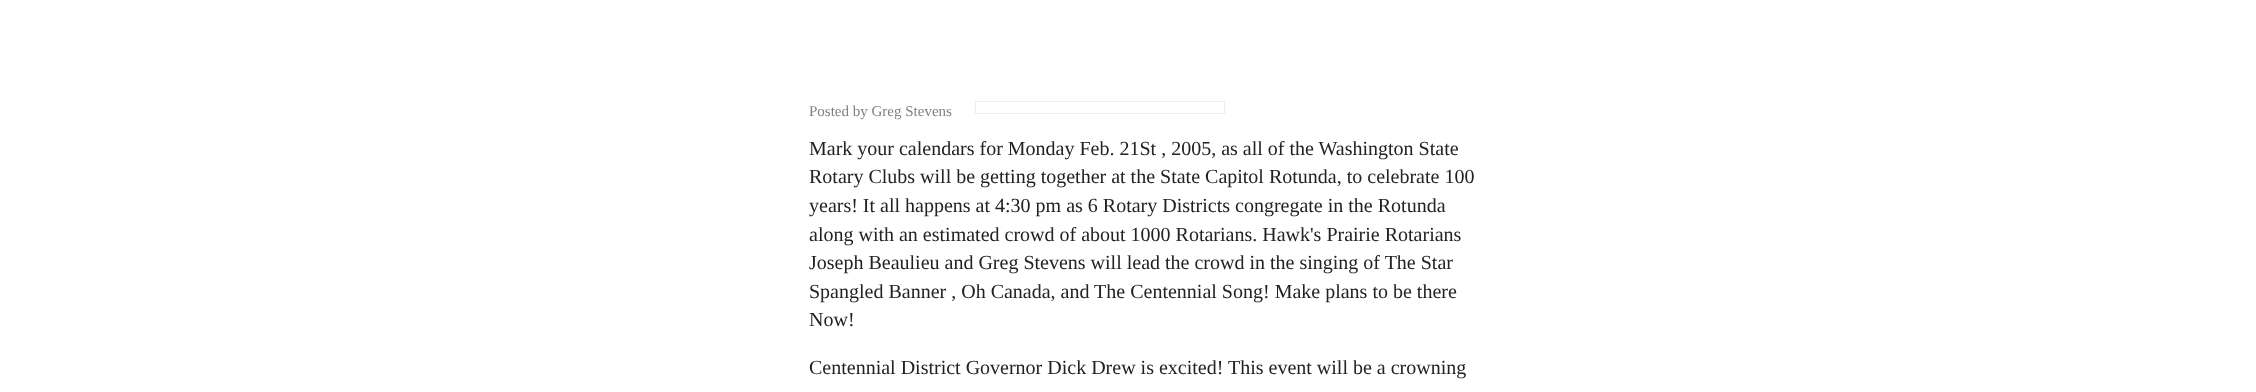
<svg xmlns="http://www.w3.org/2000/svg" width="2256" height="392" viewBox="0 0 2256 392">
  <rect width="100%" height="100%" fill="rgb(255,255,255)"/>
  <text x="809" y="116" font-family="Liberation Serif" font-size="15" fill="rgb(128,128,128)">Posted by Greg Stevens</text>
  <rect x="975.5" y="101.5" width="249" height="12" fill="none" stroke="rgb(238,238,238)"/>
  <g font-family="Liberation Serif" font-size="20" fill="rgb(34,34,34)">
    <text>
      <tspan x="809" y="155">Mark your calendars for Monday Feb. 21St , 2005, as all of the Washington State</tspan>
      <tspan x="809" y="183">Rotary Clubs will be getting together at the State Capitol Rotunda, to celebrate 100</tspan>
      <tspan x="809" y="212">years! It all happens at 4:30 pm as 6 Rotary Districts congregate in the Rotunda</tspan>
      <tspan x="809" y="241">along with an estimated crowd of about 1000 Rotarians. Hawk's Prairie Rotarians</tspan>
      <tspan x="809" y="269">Joseph Beaulieu and Greg Stevens will lead the crowd in the singing of The Star</tspan>
      <tspan x="809" y="298">Spangled Banner , Oh Canada, and The Centennial Song! Make plans to be there</tspan>
      <tspan x="809" y="326">Now!</tspan>
    </text>
    <text x="809" y="374">Centennial District Governor Dick Drew is excited! This event will be a crowning</text>
  </g>
</svg>
